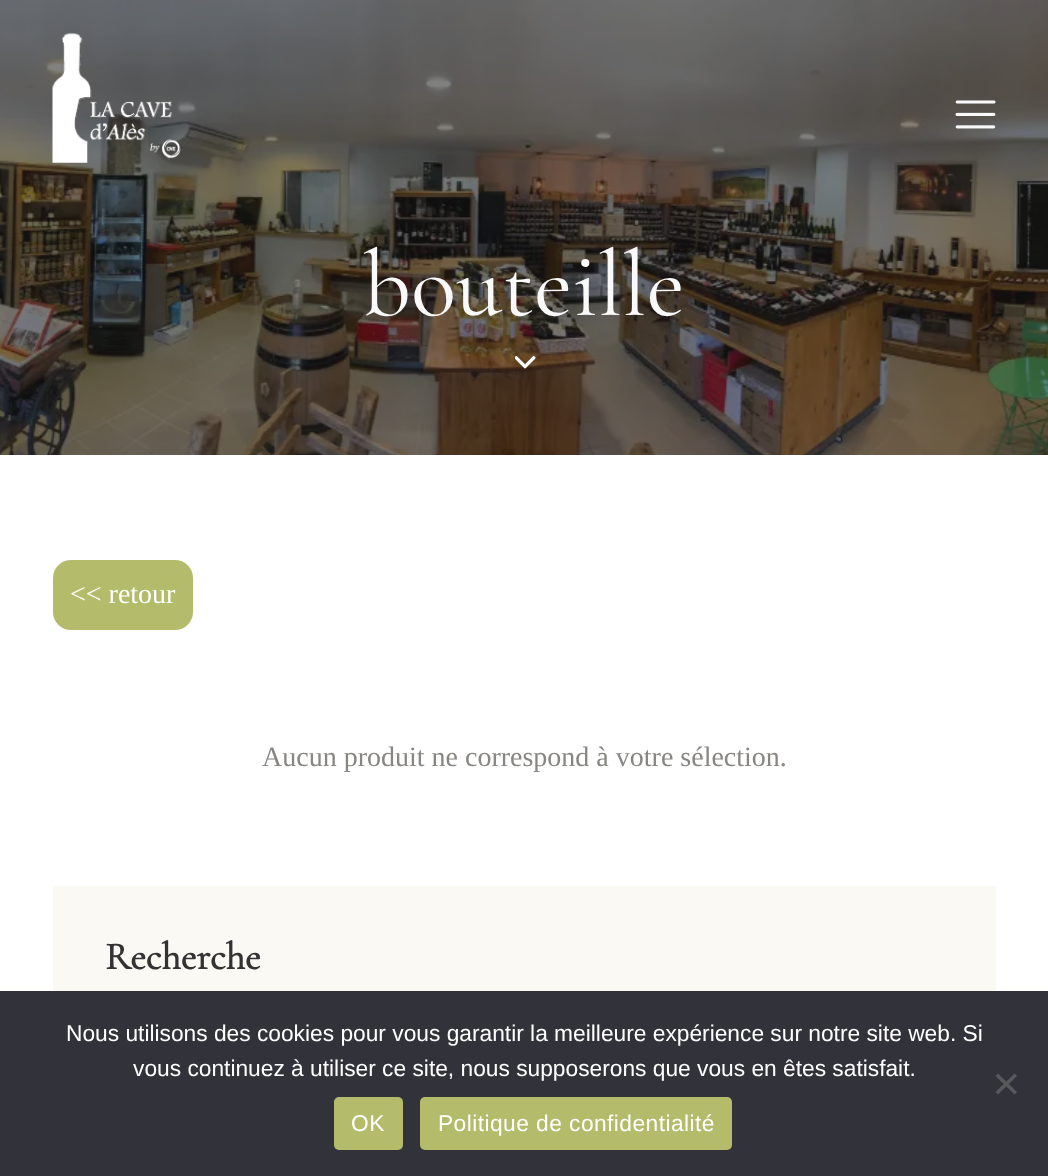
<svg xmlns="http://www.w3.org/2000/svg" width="1048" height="1176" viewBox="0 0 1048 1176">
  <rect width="100%" height="100%" fill="rgb(255,255,255)"/>
  <image x="0" y="0" width="1048" height="455" href="pic1.png"/>
  <image x="52" y="33" width="129" height="130" href="pic2.png"/>
  <image x="955" y="100" width="41" height="29" href="pic3.png"/>
  <text x="363" y="315" font-family="Cormorant Garamond" font-size="94" font-weight="300" fill="rgb(249,249,249)">bouteille</text>
  <image x="515" y="356" width="21" height="13" href="pic4.png"/>
  <rect x="53" y="560" width="140" height="70" rx="18" fill="rgb(180,187,107)"/>
  <text x="70" y="603" font-family="Liberation Serif" font-size="28" fill="rgb(255,255,255)">&lt;&lt; retour</text>
  <text x="262" y="766" font-family="Liberation Serif" font-size="28" fill="rgb(136,134,130)">Aucun produit ne correspond à votre sélection.</text>
  <rect x="53" y="886" width="943" height="105" fill="rgb(251,249,244)"/>
  <text x="105" y="969" font-family="Cormorant Garamond" font-size="38.5" font-weight="bold" fill="rgb(51,51,51)">Recherche</text>
  <rect x="0" y="991" width="1048" height="185" fill="rgb(50,50,58)"/>
  <g font-family="Liberation Sans" font-size="22.75" fill="rgb(255,255,255)">
    <text x="66" y="1041">Nous utilisons des cookies pour vous garantir la meilleure expérience sur notre site web. Si</text>
    <text x="133" y="1076">vous continuez à utiliser ce site, nous supposerons que vous en êtes satisfait.</text>
  </g>
  <path d="M1014.5 1073.5L1017 1076L998 1094.5L995.5 1092Z" fill="rgb(89,89,93)"/>
  <path d="M995.5 1076L998 1073.5L1017 1092L1014.5 1094.5Z" fill="rgb(89,89,93)"/>
  <rect x="334" y="1097" width="69" height="53" rx="5" fill="rgb(180,187,107)"/>
  <text x="351" y="1131" font-family="Liberation Sans" font-size="22.75" letter-spacing="0.45" fill="rgb(255,255,255)">OK</text>
  <rect x="420" y="1097" width="312" height="53" rx="5" fill="rgb(180,187,107)"/>
  <text x="438" y="1131" font-family="Liberation Sans" font-size="22.75" letter-spacing="0.45" fill="rgb(255,255,255)">Politique de confidentialité</text>
</svg>
